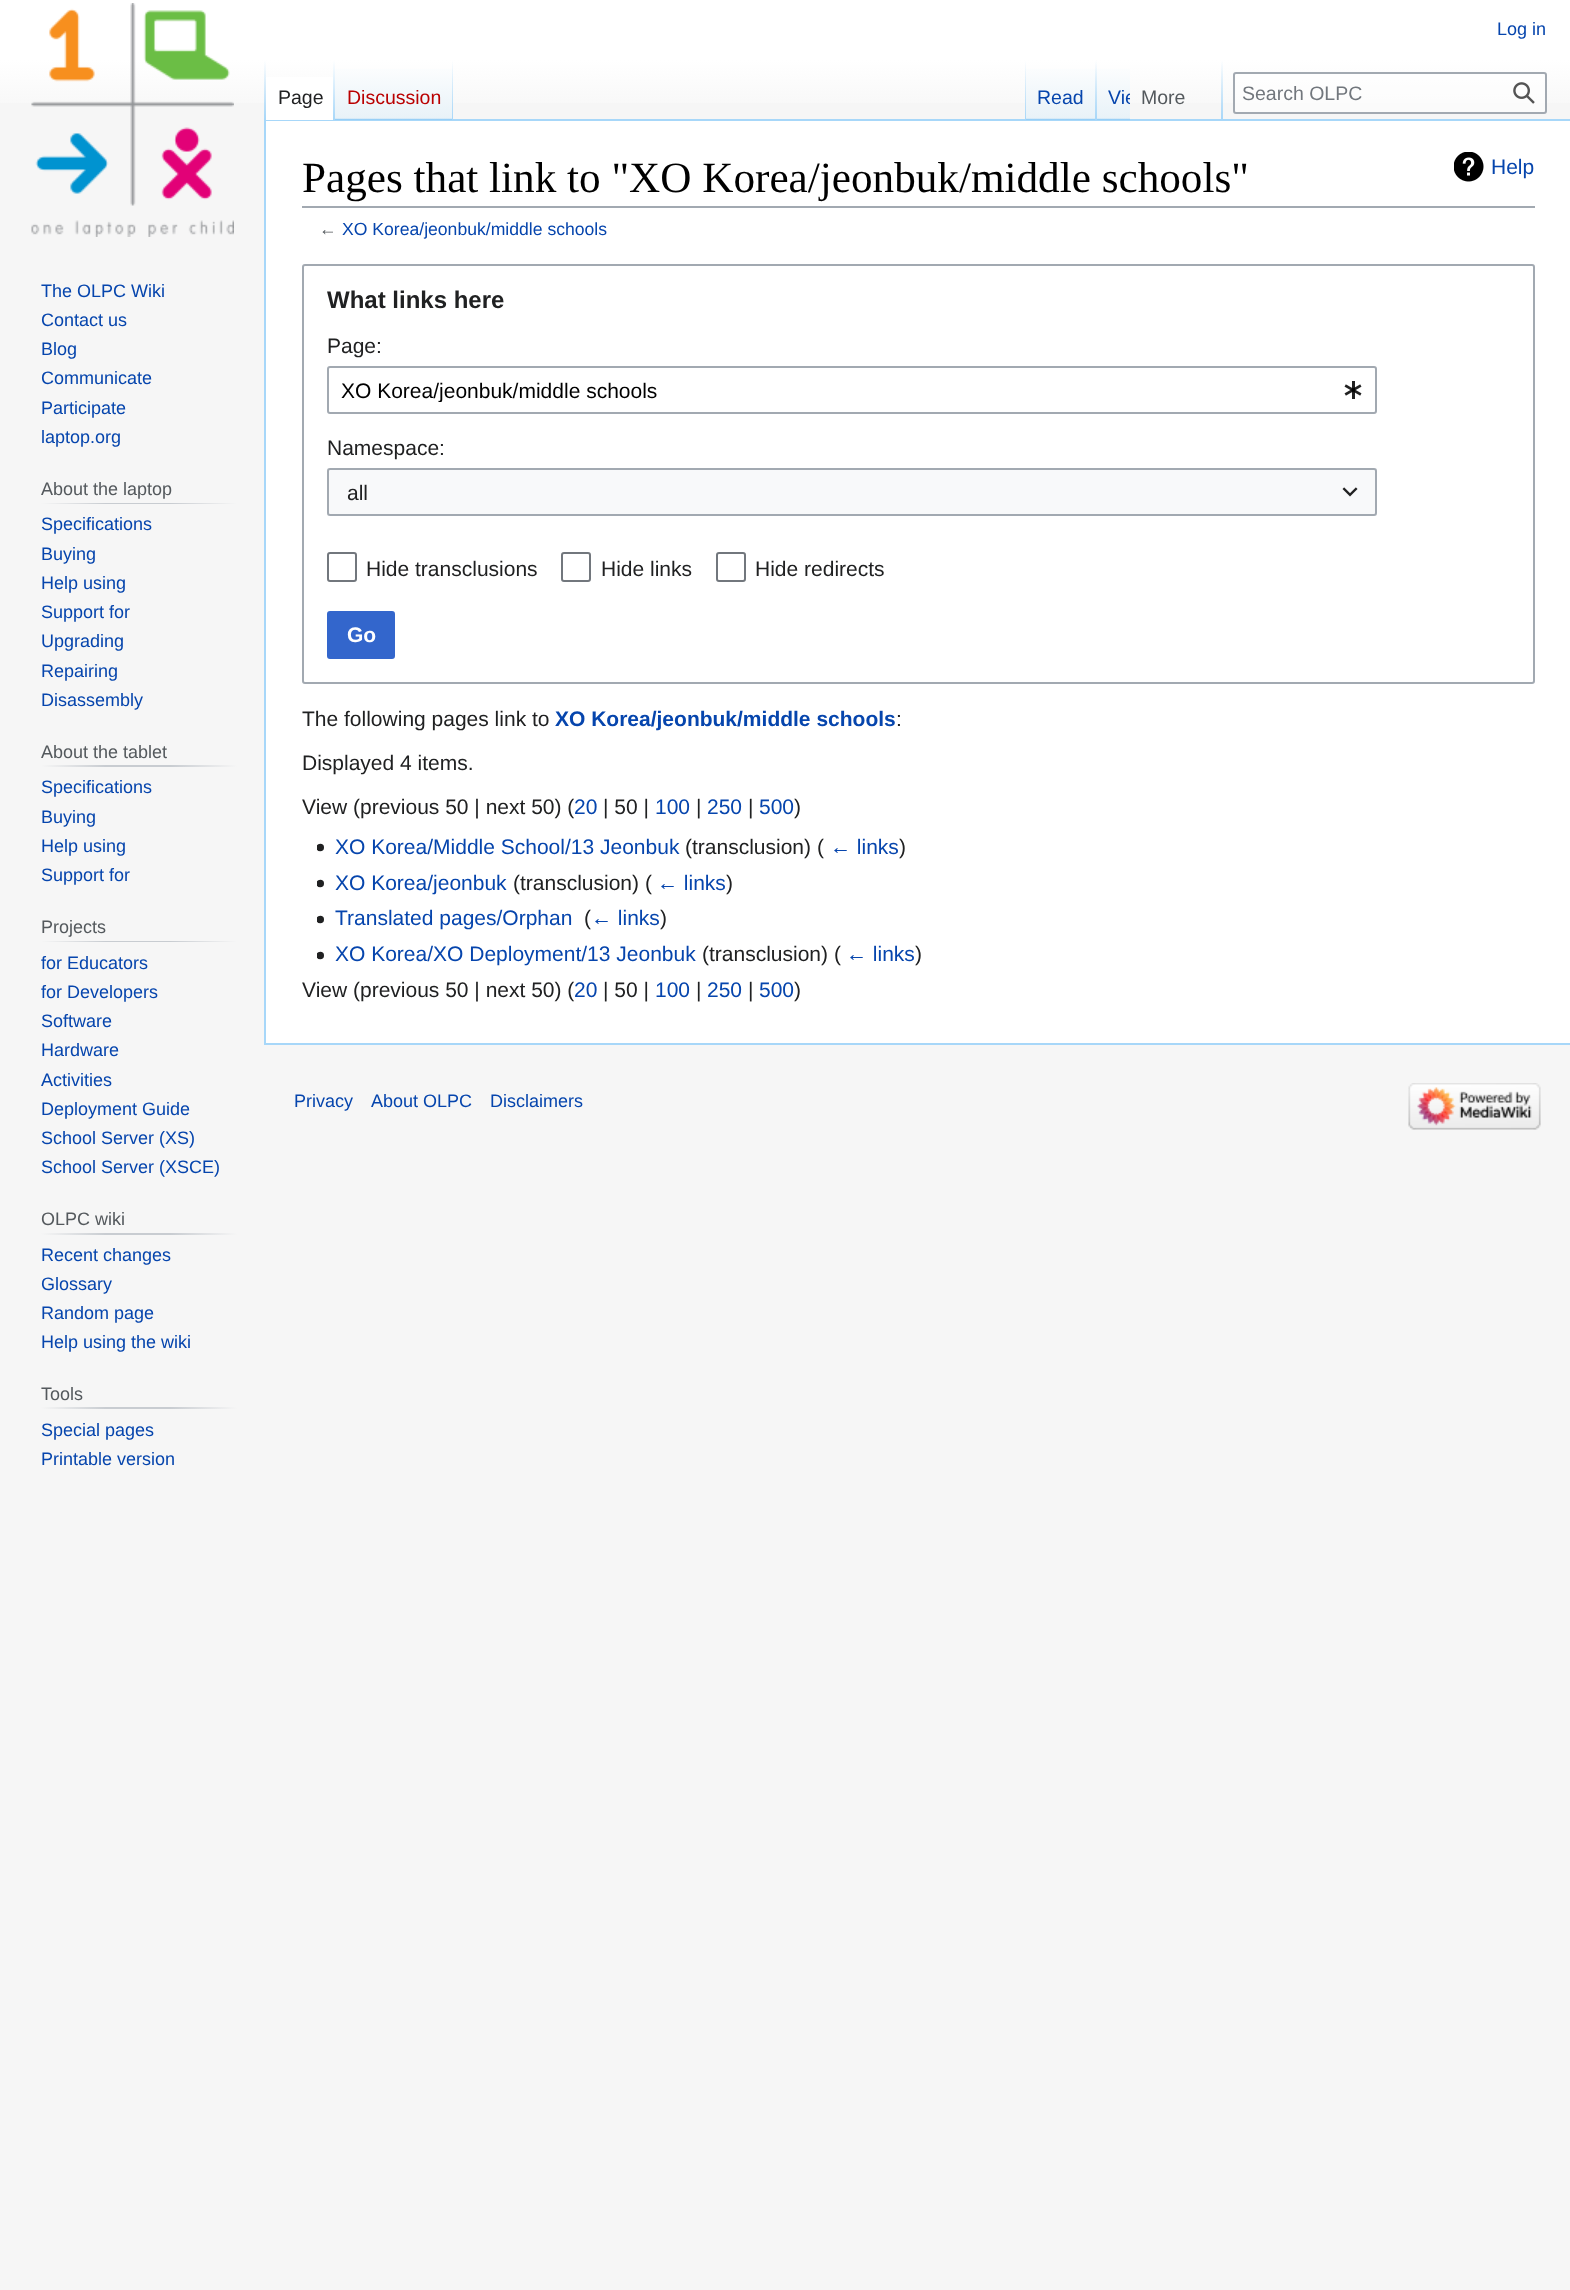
<svg xmlns="http://www.w3.org/2000/svg" width="1570" height="2290" viewBox="0 0 1570 2290">
  <defs>
    <linearGradient id="g1" gradientUnits="userSpaceOnUse" x1="785" y1="0" x2="785" y2="120"><stop offset="0.5" stop-color="rgb(255,255,255)"/><stop offset="1" stop-color="rgb(246,246,246)"/></linearGradient>
    <linearGradient id="g2" gradientUnits="userSpaceOnUse" x1="265" y1="60" x2="265" y2="120"><stop offset="0" stop-color="rgb(167,215,249)" stop-opacity="0"/><stop offset="1" stop-color="rgb(167,215,249)"/></linearGradient>
    <linearGradient id="g3" gradientUnits="userSpaceOnUse" x1="334" y1="60" x2="334" y2="120"><stop offset="0" stop-color="rgb(255,255,255)"/><stop offset="1" stop-color="rgb(167,215,249)"/></linearGradient>
    <linearGradient id="g4" gradientUnits="userSpaceOnUse" x1="394" y1="120" x2="394" y2="60"><stop offset="0" stop-color="rgb(119,193,246)"/><stop offset="0.03" stop-color="rgb(232,242,248)"/><stop offset="1" stop-color="rgb(255,255,255)"/></linearGradient>
    <linearGradient id="g5" gradientUnits="userSpaceOnUse" x1="452" y1="60" x2="452" y2="120"><stop offset="0" stop-color="rgb(167,215,249)" stop-opacity="0"/><stop offset="1" stop-color="rgb(167,215,249)"/></linearGradient>
    <linearGradient id="g6" gradientUnits="userSpaceOnUse" x1="1025" y1="60" x2="1025" y2="120"><stop offset="0" stop-color="rgb(167,215,249)" stop-opacity="0"/><stop offset="1" stop-color="rgb(167,215,249)"/></linearGradient>
    <linearGradient id="g7" gradientUnits="userSpaceOnUse" x1="1061" y1="120" x2="1061" y2="60"><stop offset="0" stop-color="rgb(119,193,246)"/><stop offset="0.03" stop-color="rgb(232,242,248)"/><stop offset="1" stop-color="rgb(255,255,255)"/></linearGradient>
    <linearGradient id="g8" gradientUnits="userSpaceOnUse" x1="1096" y1="60" x2="1096" y2="120"><stop offset="0" stop-color="rgb(167,215,249)" stop-opacity="0"/><stop offset="1" stop-color="rgb(167,215,249)"/></linearGradient>
    <linearGradient id="g9" gradientUnits="userSpaceOnUse" x1="1113" y1="120" x2="1113" y2="60"><stop offset="0" stop-color="rgb(119,193,246)"/><stop offset="0.03" stop-color="rgb(232,242,248)"/><stop offset="1" stop-color="rgb(255,255,255)"/></linearGradient>
    <clipPath id="clip1"><rect x="1097" y="60" width="33" height="60"/></clipPath>
    <linearGradient id="g10" gradientUnits="userSpaceOnUse" x1="1222" y1="60" x2="1222" y2="120"><stop offset="0" stop-color="rgb(167,215,249)" stop-opacity="0"/><stop offset="1" stop-color="rgb(167,215,249)"/></linearGradient>
    <linearGradient id="g11" gradientUnits="userSpaceOnUse" x1="41" y1="503" x2="237" y2="503"><stop offset="0" stop-color="rgb(246,246,246)"/><stop offset="0.33" stop-color="rgb(200,204,209)"/><stop offset="0.66" stop-color="rgb(200,204,209)"/><stop offset="1" stop-color="rgb(246,246,246)"/></linearGradient>
    <linearGradient id="g12" gradientUnits="userSpaceOnUse" x1="41" y1="766" x2="237" y2="766"><stop offset="0" stop-color="rgb(246,246,246)"/><stop offset="0.33" stop-color="rgb(200,204,209)"/><stop offset="0.66" stop-color="rgb(200,204,209)"/><stop offset="1" stop-color="rgb(246,246,246)"/></linearGradient>
    <linearGradient id="g13" gradientUnits="userSpaceOnUse" x1="41" y1="941" x2="237" y2="941"><stop offset="0" stop-color="rgb(246,246,246)"/><stop offset="0.33" stop-color="rgb(200,204,209)"/><stop offset="0.66" stop-color="rgb(200,204,209)"/><stop offset="1" stop-color="rgb(246,246,246)"/></linearGradient>
    <linearGradient id="g14" gradientUnits="userSpaceOnUse" x1="41" y1="1234" x2="237" y2="1234"><stop offset="0" stop-color="rgb(246,246,246)"/><stop offset="0.33" stop-color="rgb(200,204,209)"/><stop offset="0.66" stop-color="rgb(200,204,209)"/><stop offset="1" stop-color="rgb(246,246,246)"/></linearGradient>
    <linearGradient id="g15" gradientUnits="userSpaceOnUse" x1="41" y1="1408" x2="237" y2="1408"><stop offset="0" stop-color="rgb(246,246,246)"/><stop offset="0.33" stop-color="rgb(200,204,209)"/><stop offset="0.66" stop-color="rgb(200,204,209)"/><stop offset="1" stop-color="rgb(246,246,246)"/></linearGradient>
    <clipPath id="clip2"><rect x="341" y="378" width="993" height="24"/></clipPath>
  </defs>
  <rect width="100%" height="100%" fill="rgb(246,246,246)"/>
  <rect x="0" y="0" width="1570" height="103" fill="url(#g1)"/>
  <text x="1497" y="35" font-family="Liberation Sans" font-size="18" fill="rgb(6,69,173)">Log in</text>
  <rect x="264" y="119" width="1306" height="2" fill="rgb(167,215,249)"/>
  <rect x="264" y="1043" width="1306" height="2" fill="rgb(167,215,249)"/>
  <rect x="264" y="119" width="2" height="925" fill="rgb(167,215,249)"/>
  <rect x="264" y="60" width="2" height="60" fill="url(#g2)"/>
  <rect x="266" y="77" width="67" height="43" fill="rgb(255,255,255)"/>
  <rect x="333" y="60" width="2" height="60" fill="url(#g3)"/>
  <text x="278" y="104" font-family="Liberation Sans" font-size="19.5" fill="rgb(32,33,34)">Page</text>
  <rect x="335" y="69" width="118" height="51" fill="url(#g4)"/>
  <rect x="452" y="60" width="1" height="60" fill="url(#g5)"/>
  <text x="347" y="104" font-family="Liberation Sans" font-size="19.5" fill="rgb(186,0,0)">Discussion</text>
  <rect x="1025" y="60" width="1" height="60" fill="url(#g6)"/>
  <rect x="1026" y="69" width="71" height="51" fill="url(#g7)"/>
  <rect x="1095" y="60" width="2" height="60" fill="url(#g8)"/>
  <text x="1037" y="104" font-family="Liberation Sans" font-size="19.5" fill="rgb(6,69,173)">Read</text>
  <rect x="1097" y="69" width="33" height="51" fill="url(#g9)"/>
  <g clip-path="url(#clip1)">
    <text x="1108" y="104" font-family="Liberation Sans" font-size="19.5" fill="rgb(6,69,173)">Vie</text>
  </g>
  <rect x="1221" y="60" width="2" height="60" fill="url(#g10)"/>
  <text x="1141" y="104" font-family="Liberation Sans" font-size="19.5" fill="rgb(84,89,93)">More</text>
  <rect x="1234" y="73" width="312" height="40" rx="2" fill="rgba(255,255,255,0.5)" stroke="rgb(162,169,177)" stroke-width="2"/>
  <text x="1242" y="100" font-family="Liberation Sans" font-size="19.5" fill="rgb(114,119,125)">Search OLPC</text>
  <image x="1513" y="82" width="22" height="22" href="pic1.png"/>
  <image x="31" y="3" width="203" height="234" href="pic2.png"/>
  <g font-family="Liberation Sans" font-size="18" fill="rgb(6,69,173)">
    <text>
      <tspan x="41" y="297">The OLPC Wiki</tspan>
      <tspan x="41" y="326">Contact us</tspan>
      <tspan x="41" y="355">Blog</tspan>
      <tspan x="41" y="384">Communicate</tspan>
      <tspan x="41" y="414">Participate</tspan>
      <tspan x="41" y="443">laptop.org</tspan>
    </text>
  </g>
  <rect x="41" y="503" width="196" height="1" fill="url(#g11)"/>
  <text x="41" y="495" font-family="Liberation Sans" font-size="18" fill="rgb(84,89,93)">About the laptop</text>
  <g font-family="Liberation Sans" font-size="18" fill="rgb(6,69,173)">
    <text>
      <tspan x="41" y="530">Specifications</tspan>
      <tspan x="41" y="560">Buying</tspan>
      <tspan x="41" y="589">Help using</tspan>
      <tspan x="41" y="618">Support for</tspan>
      <tspan x="41" y="647">Upgrading</tspan>
      <tspan x="41" y="677">Repairing</tspan>
      <tspan x="41" y="706">Disassembly</tspan>
    </text>
  </g>
  <rect x="41" y="765" width="196" height="2" fill="url(#g12)"/>
  <text x="41" y="758" font-family="Liberation Sans" font-size="18" fill="rgb(84,89,93)">About the tablet</text>
  <g font-family="Liberation Sans" font-size="18" fill="rgb(6,69,173)">
    <text>
      <tspan x="41" y="793">Specifications</tspan>
      <tspan x="41" y="823">Buying</tspan>
      <tspan x="41" y="852">Help using</tspan>
      <tspan x="41" y="881">Support for</tspan>
    </text>
  </g>
  <rect x="41" y="941" width="196" height="1" fill="url(#g13)"/>
  <text x="41" y="933" font-family="Liberation Sans" font-size="18" fill="rgb(84,89,93)">Projects</text>
  <g font-family="Liberation Sans" font-size="18" fill="rgb(6,69,173)">
    <text>
      <tspan x="41" y="969">for Educators</tspan>
      <tspan x="41" y="998">for Developers</tspan>
      <tspan x="41" y="1027">Software</tspan>
      <tspan x="41" y="1056">Hardware</tspan>
      <tspan x="41" y="1086">Activities</tspan>
      <tspan x="41" y="1115">Deployment Guide</tspan>
      <tspan x="41" y="1144">School Server (XS)</tspan>
      <tspan x="41" y="1173">School Server (XSCE)</tspan>
    </text>
  </g>
  <rect x="41" y="1233" width="196" height="2" fill="url(#g14)"/>
  <text x="41" y="1225" font-family="Liberation Sans" font-size="18" fill="rgb(84,89,93)">OLPC wiki</text>
  <g font-family="Liberation Sans" font-size="18" fill="rgb(6,69,173)">
    <text>
      <tspan x="41" y="1261">Recent changes</tspan>
      <tspan x="41" y="1290">Glossary</tspan>
      <tspan x="41" y="1319">Random page</tspan>
      <tspan x="41" y="1348">Help using the wiki</tspan>
    </text>
  </g>
  <rect x="41" y="1407" width="196" height="2" fill="url(#g15)"/>
  <text x="41" y="1400" font-family="Liberation Sans" font-size="18" fill="rgb(84,89,93)">Tools</text>
  <g font-family="Liberation Sans" font-size="18" fill="rgb(6,69,173)">
    <text>
      <tspan x="41" y="1436">Special pages</tspan>
      <tspan x="41" y="1465">Printable version</tspan>
    </text>
  </g>
  <rect x="266" y="121" width="1304" height="922" fill="rgb(255,255,255)"/>
  <rect x="302" y="206" width="1233" height="2" fill="rgb(162,169,177)"/>
  <text x="302" y="192" font-family="Liberation Serif" font-size="43.2" fill="rgb(0,0,0)">Pages that link to "XO Korea/jeonbuk/middle schools"</text>
  <image x="1454" y="152" width="30" height="30" href="pic3.png"/>
  <text x="1491" y="174" font-family="Liberation Sans" font-size="21" fill="rgb(6,69,173)">Help</text>
  <text x="319" y="235" font-family="Liberation Sans" font-size="17.6" fill="rgb(84,89,93)">←</text>
  <text x="342" y="235" font-family="Liberation Sans" font-size="17.6" fill="rgb(6,69,173)">XO Korea/jeonbuk/middle schools</text>
  <rect x="303" y="265" width="1231" height="418" rx="2" fill="none" stroke="rgb(162,169,177)" stroke-width="2"/>
  <text x="327" y="308" font-family="Liberation Sans" font-size="24" font-weight="bold" fill="rgb(32,33,34)">What links here</text>
  <text x="327" y="353" font-family="Liberation Sans" font-size="21" fill="rgb(32,33,34)">Page:</text>
  <rect x="328" y="367" width="1048" height="46" rx="2" fill="none" stroke="rgb(162,169,177)" stroke-width="2"/>
  <g clip-path="url(#clip2)">
    <text x="341" y="398" font-family="Liberation Sans" font-size="21" fill="rgb(0,0,0)">XO Korea/jeonbuk/middle schools</text>
  </g>
  <image x="1344" y="381" width="18" height="18" href="pic4.png"/>
  <text x="327" y="455" font-family="Liberation Sans" font-size="21" fill="rgb(32,33,34)">Namespace:</text>
  <rect x="327" y="468" width="1050" height="48" fill="rgb(248,249,250)"/>
  <rect x="328" y="469" width="1048" height="46" rx="2" fill="none" stroke="rgb(162,169,177)" stroke-width="2"/>
  <text x="347" y="500" font-family="Liberation Sans" font-size="21" fill="rgb(32,33,34)">all</text>
  <image x="1342" y="487" width="16" height="10" href="pic5.png"/>
  <rect x="328" y="553" width="28" height="28" rx="2" fill="none" stroke="rgb(114,119,125)" stroke-width="2"/>
  <text x="366" y="576" font-family="Liberation Sans" font-size="21" fill="rgb(32,33,34)">Hide transclusions</text>
  <rect x="562" y="553" width="28" height="28" rx="2" fill="none" stroke="rgb(114,119,125)" stroke-width="2"/>
  <text x="601" y="576" font-family="Liberation Sans" font-size="21" fill="rgb(32,33,34)">Hide links</text>
  <rect x="717" y="553" width="28" height="28" rx="2" fill="none" stroke="rgb(114,119,125)" stroke-width="2"/>
  <text x="755" y="576" font-family="Liberation Sans" font-size="21" fill="rgb(32,33,34)">Hide redirects</text>
  <rect x="328" y="612" width="66" height="46" rx="2" fill="rgb(51,102,204)" stroke="rgb(51,102,204)" stroke-width="2"/>
  <text x="347" y="642" font-family="Liberation Sans" font-size="21" font-weight="bold" fill="rgb(255,255,255)">Go</text>
  <text x="302" y="726" font-family="Liberation Sans" font-size="21" fill="rgb(32,33,34)">The following pages link to</text>
  <text x="555" y="726" font-family="Liberation Sans" font-size="21" font-weight="bold" fill="rgb(6,69,173)">XO Korea/jeonbuk/middle schools</text>
  <g font-family="Liberation Sans" font-size="21" fill="rgb(32,33,34)">
    <text x="896" y="726">:</text>
    <text x="302" y="770">Displayed 4 items.</text>
    <text x="302" y="814">View (previous 50 | next 50) (</text>
  </g>
  <text x="574" y="814" font-family="Liberation Sans" font-size="21" fill="rgb(6,69,173)">20</text>
  <text x="603" y="814" font-family="Liberation Sans" font-size="21" fill="rgb(32,33,34)">| 50 |</text>
  <text x="655" y="814" font-family="Liberation Sans" font-size="21" fill="rgb(6,69,173)">100</text>
  <text x="696" y="814" font-family="Liberation Sans" font-size="21" fill="rgb(32,33,34)">|</text>
  <text x="707" y="814" font-family="Liberation Sans" font-size="21" fill="rgb(6,69,173)">250</text>
  <text x="748" y="814" font-family="Liberation Sans" font-size="21" fill="rgb(32,33,34)">|</text>
  <text x="759" y="814" font-family="Liberation Sans" font-size="21" fill="rgb(6,69,173)">500</text>
  <text x="794" y="814" font-family="Liberation Sans" font-size="21" fill="rgb(32,33,34)">)</text>
  <image x="317" y="843" width="7" height="9" href="pic6.png"/>
  <text x="335" y="854" font-family="Liberation Sans" font-size="21" fill="rgb(6,69,173)">XO Korea/Middle School/13 Jeonbuk</text>
  <text x="685" y="854" font-family="Liberation Sans" font-size="21" fill="rgb(32,33,34)">(transclusion)  (</text>
  <text x="830" y="854" font-family="Liberation Sans" font-size="21" fill="rgb(6,69,173)">← links</text>
  <text x="899" y="854" font-family="Liberation Sans" font-size="21" fill="rgb(32,33,34)">)</text>
  <image x="317" y="879" width="7" height="9" href="pic6.png"/>
  <text x="335" y="890" font-family="Liberation Sans" font-size="21" fill="rgb(6,69,173)">XO Korea/jeonbuk</text>
  <text x="513" y="890" font-family="Liberation Sans" font-size="21" fill="rgb(32,33,34)">(transclusion)  (</text>
  <text x="657" y="890" font-family="Liberation Sans" font-size="21" fill="rgb(6,69,173)">← links</text>
  <text x="726" y="890" font-family="Liberation Sans" font-size="21" fill="rgb(32,33,34)">)</text>
  <image x="317" y="915" width="7" height="9" href="pic6.png"/>
  <text x="335" y="925" font-family="Liberation Sans" font-size="21" fill="rgb(6,69,173)">Translated pages/Orphan</text>
  <text x="584" y="925" font-family="Liberation Sans" font-size="21" fill="rgb(32,33,34)">(</text>
  <text x="591" y="925" font-family="Liberation Sans" font-size="21" fill="rgb(6,69,173)">← links</text>
  <text x="660" y="925" font-family="Liberation Sans" font-size="21" fill="rgb(32,33,34)">)</text>
  <image x="317" y="951" width="7" height="9" href="pic6.png"/>
  <text x="335" y="961" font-family="Liberation Sans" font-size="21" fill="rgb(6,69,173)">XO Korea/XO Deployment/13 Jeonbuk</text>
  <text x="702" y="961" font-family="Liberation Sans" font-size="21" fill="rgb(32,33,34)">(transclusion)  (</text>
  <text x="846" y="961" font-family="Liberation Sans" font-size="21" fill="rgb(6,69,173)">← links</text>
  <g font-family="Liberation Sans" font-size="21" fill="rgb(32,33,34)">
    <text x="915" y="961">)</text>
    <text x="302" y="997">View (previous 50 | next 50) (</text>
  </g>
  <text x="574" y="997" font-family="Liberation Sans" font-size="21" fill="rgb(6,69,173)">20</text>
  <text x="603" y="997" font-family="Liberation Sans" font-size="21" fill="rgb(32,33,34)">| 50 |</text>
  <text x="655" y="997" font-family="Liberation Sans" font-size="21" fill="rgb(6,69,173)">100</text>
  <text x="696" y="997" font-family="Liberation Sans" font-size="21" fill="rgb(32,33,34)">|</text>
  <text x="707" y="997" font-family="Liberation Sans" font-size="21" fill="rgb(6,69,173)">250</text>
  <text x="748" y="997" font-family="Liberation Sans" font-size="21" fill="rgb(32,33,34)">|</text>
  <text x="759" y="997" font-family="Liberation Sans" font-size="21" fill="rgb(6,69,173)">500</text>
  <text x="794" y="997" font-family="Liberation Sans" font-size="21" fill="rgb(32,33,34)">)</text>
  <g font-family="Liberation Sans" font-size="18" fill="rgb(6,69,173)">
    <text x="294" y="1107">Privacy</text>
    <text x="371" y="1107">About OLPC</text>
    <text x="490" y="1107">Disclaimers</text>
  </g>
  <image x="1408" y="1083" width="133" height="47" href="pic7.png"/>
</svg>
